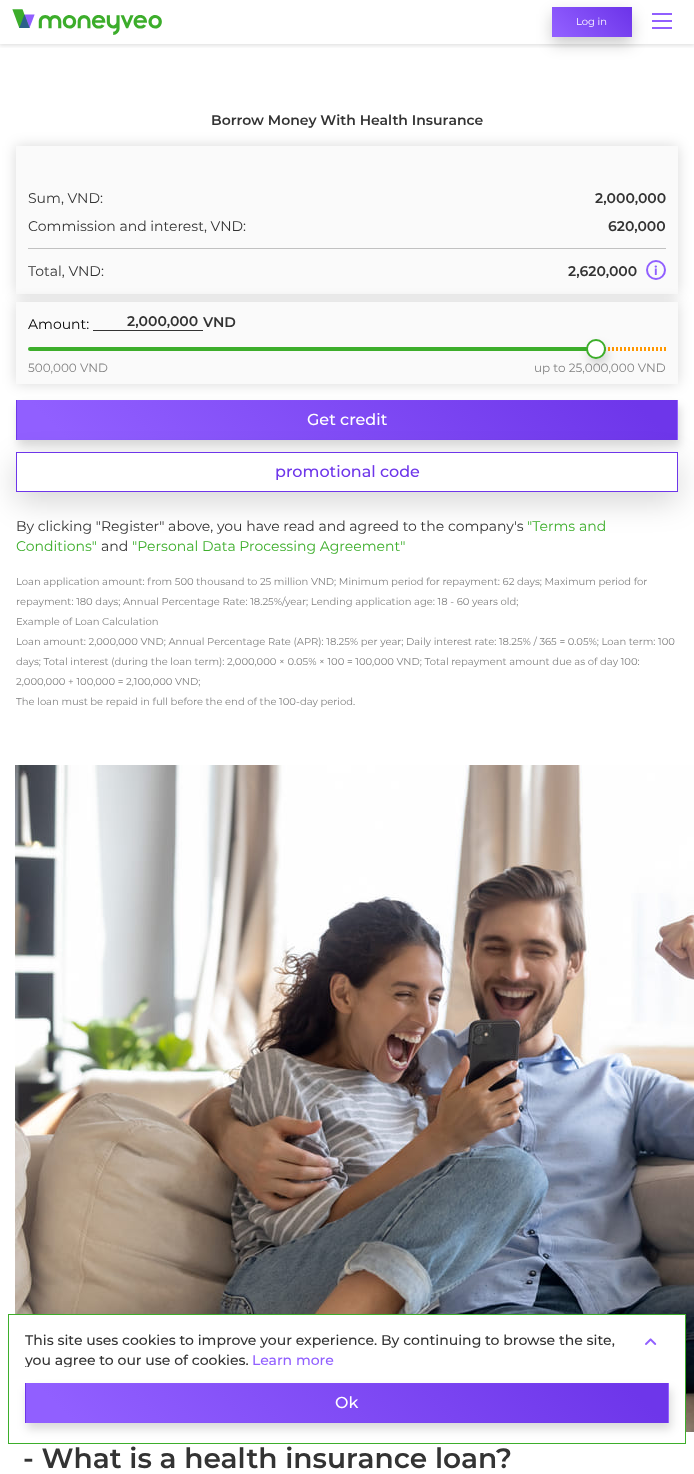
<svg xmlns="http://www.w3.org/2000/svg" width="694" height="1474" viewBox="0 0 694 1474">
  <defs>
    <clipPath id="clip1"><rect x="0" y="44" width="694" height="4"/></clipPath>
    <linearGradient id="g1" gradientUnits="userSpaceOnUse" x1="565" y1="50" x2="620" y2="-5.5"><stop offset="0.07" stop-color="rgb(145,95,255)"/><stop offset="0.94" stop-color="rgb(110,54,234)"/></linearGradient>
    <linearGradient id="g2" gradientUnits="userSpaceOnUse" x1="-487" y1="557" x2="-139" y2="208"><stop offset="0.07" stop-color="rgb(145,95,255)"/><stop offset="0.94" stop-color="rgb(110,54,234)"/></linearGradient>
    <linearGradient id="g3" gradientUnits="userSpaceOnUse" x1="173" y1="557" x2="522" y2="208"><stop offset="0.07" stop-color="rgb(145,95,255)"/><stop offset="0.94" stop-color="rgb(110,54,234)"/></linearGradient>
    <linearGradient id="g4" gradientUnits="userSpaceOnUse" x1="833" y1="557" x2="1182" y2="208"><stop offset="0.07" stop-color="rgb(145,95,255)"/><stop offset="0.94" stop-color="rgb(110,54,234)"/></linearGradient>
    <linearGradient id="g5" gradientUnits="userSpaceOnUse" x1="-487" y1="595" x2="-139" y2="246"><stop offset="0.07" stop-color="rgb(145,95,255)"/><stop offset="0.94" stop-color="rgb(110,54,234)"/></linearGradient>
    <linearGradient id="g6" gradientUnits="userSpaceOnUse" x1="173" y1="595" x2="522" y2="246"><stop offset="0.07" stop-color="rgb(145,95,255)"/><stop offset="0.94" stop-color="rgb(110,54,234)"/></linearGradient>
    <linearGradient id="g7" gradientUnits="userSpaceOnUse" x1="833" y1="595" x2="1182" y2="246"><stop offset="0.07" stop-color="rgb(145,95,255)"/><stop offset="0.94" stop-color="rgb(110,54,234)"/></linearGradient>
    <linearGradient id="g8" gradientUnits="userSpaceOnUse" x1="-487" y1="633" x2="-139" y2="284"><stop offset="0.07" stop-color="rgb(145,95,255)"/><stop offset="0.94" stop-color="rgb(110,54,234)"/></linearGradient>
    <linearGradient id="g9" gradientUnits="userSpaceOnUse" x1="173" y1="633" x2="522" y2="284"><stop offset="0.07" stop-color="rgb(145,95,255)"/><stop offset="0.94" stop-color="rgb(110,54,234)"/></linearGradient>
    <linearGradient id="g10" gradientUnits="userSpaceOnUse" x1="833" y1="633" x2="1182" y2="284"><stop offset="0.07" stop-color="rgb(145,95,255)"/><stop offset="0.94" stop-color="rgb(110,54,234)"/></linearGradient>
    <clipPath id="clip2"><rect x="25" y="1331" width="608" height="36"/></clipPath>
    <linearGradient id="g11" gradientUnits="userSpaceOnUse" x1="-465" y1="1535" x2="-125" y2="1195"><stop offset="0.07" stop-color="rgb(145,95,255)"/><stop offset="0.94" stop-color="rgb(110,54,234)"/></linearGradient>
    <linearGradient id="g12" gradientUnits="userSpaceOnUse" x1="177" y1="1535" x2="517" y2="1195"><stop offset="0.07" stop-color="rgb(145,95,255)"/><stop offset="0.94" stop-color="rgb(110,54,234)"/></linearGradient>
    <linearGradient id="g13" gradientUnits="userSpaceOnUse" x1="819" y1="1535" x2="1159" y2="1195"><stop offset="0.07" stop-color="rgb(145,95,255)"/><stop offset="0.94" stop-color="rgb(110,54,234)"/></linearGradient>
    <linearGradient id="g14" gradientUnits="userSpaceOnUse" x1="-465" y1="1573" x2="-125" y2="1233"><stop offset="0.07" stop-color="rgb(145,95,255)"/><stop offset="0.94" stop-color="rgb(110,54,234)"/></linearGradient>
    <linearGradient id="g15" gradientUnits="userSpaceOnUse" x1="177" y1="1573" x2="517" y2="1233"><stop offset="0.07" stop-color="rgb(145,95,255)"/><stop offset="0.94" stop-color="rgb(110,54,234)"/></linearGradient>
    <linearGradient id="g16" gradientUnits="userSpaceOnUse" x1="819" y1="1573" x2="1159" y2="1233"><stop offset="0.07" stop-color="rgb(145,95,255)"/><stop offset="0.94" stop-color="rgb(110,54,234)"/></linearGradient>
    <linearGradient id="g17" gradientUnits="userSpaceOnUse" x1="-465" y1="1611" x2="-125" y2="1271"><stop offset="0.07" stop-color="rgb(145,95,255)"/><stop offset="0.94" stop-color="rgb(110,54,234)"/></linearGradient>
    <linearGradient id="g18" gradientUnits="userSpaceOnUse" x1="177" y1="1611" x2="517" y2="1271"><stop offset="0.07" stop-color="rgb(145,95,255)"/><stop offset="0.94" stop-color="rgb(110,54,234)"/></linearGradient>
    <linearGradient id="g19" gradientUnits="userSpaceOnUse" x1="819" y1="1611" x2="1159" y2="1271"><stop offset="0.07" stop-color="rgb(145,95,255)"/><stop offset="0.94" stop-color="rgb(110,54,234)"/></linearGradient>
  </defs>
  <rect width="100%" height="100%" fill="rgb(255,255,255)"/>
  <g clip-path="url(#clip1)">
    <rect x="-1" y="-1" width="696" height="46" fill="rgba(0,0,0,0.15)" filter="blur(2.5px)"/>
  </g>
  <image x="12" y="9" width="150" height="26" href="pic1.png"/>
  <rect x="552" y="14" width="80" height="30" fill="rgba(0,0,0,0.2)" filter="blur(7.5px)"/>
  <rect x="552" y="7" width="80" height="30" fill="url(#g1)"/>
  <text x="576" y="25" font-family="Montserrat" font-size="10" fill="rgb(255,255,255)">Log in</text>
  <rect x="652" y="13" width="20" height="2" fill="rgb(145,95,255)"/>
  <rect x="652" y="20" width="20" height="2" fill="rgb(145,95,255)"/>
  <rect x="652" y="27" width="20" height="2" fill="rgb(145,95,255)"/>
  <text x="211" y="125" font-family="Montserrat" font-size="14" font-weight="600" fill="rgb(51,51,51)">Borrow Money With Health Insurance</text>
  <rect x="16" y="146" width="662" height="148" fill="rgba(0,0,0,0.15)" filter="blur(7px)"/>
  <rect x="16" y="146" width="662" height="148" fill="rgb(250,250,250)"/>
  <text x="28" y="203" font-family="Montserrat" font-size="14" fill="rgb(51,51,51)">Sum, VND:</text>
  <text x="595" y="203" font-family="Montserrat" font-size="14" font-weight="600" fill="rgb(51,51,51)">2,000,000</text>
  <text x="28" y="231" font-family="Montserrat" font-size="14" fill="rgb(51,51,51)">Commission and interest, VND:</text>
  <text x="608" y="231" font-family="Montserrat" font-size="14" font-weight="600" fill="rgb(51,51,51)">620,000</text>
  <rect x="28" y="248" width="638" height="1" fill="rgb(193,193,193)"/>
  <text x="28" y="276" font-family="Montserrat" font-size="14" fill="rgb(51,51,51)">Total, VND:</text>
  <text x="568" y="276" font-family="Montserrat" font-size="14" font-weight="600" fill="rgb(51,51,51)">2,620,000</text>
  <circle cx="656" cy="270" r="9" fill="none" stroke="rgb(145,95,255)" stroke-width="2"/>
  <text x="654" y="275" font-family="Montserrat" font-size="12" font-weight="bold" fill="rgb(145,95,255)">i</text>
  <rect x="16" y="302" width="662" height="82" fill="rgba(0,0,0,0.15)" filter="blur(7px)"/>
  <rect x="16" y="302" width="662" height="82" fill="rgb(250,250,250)"/>
  <rect x="93" y="330" width="110" height="1" fill="rgb(51,51,51)"/>
  <g font-family="Montserrat" font-size="14" font-weight="600" fill="rgb(51,51,51)">
    <text x="127" y="326">2,000,000</text>
    <text x="203" y="327">VND</text>
  </g>
  <text x="28" y="329" font-family="Montserrat" font-size="14" fill="rgb(0,0,0)">Amount:</text>
  <rect x="28" y="347" width="568" height="4" rx="2" fill="rgb(61,174,43)"/>
  <image x="605" y="347" width="61" height="4" href="pic2.png"/>
  <rect x="588" y="345" width="20" height="20" rx="10" fill="rgba(0,0,0,0.15)" filter="blur(5px)"/>
  <circle cx="596" cy="349" r="9" fill="rgb(255,255,255)" stroke="rgb(61,174,43)" stroke-width="2"/>
  <g font-family="Montserrat" font-size="12" fill="rgb(130,130,130)">
    <text x="28" y="372">500,000 VND</text>
    <text x="534" y="372">up to 25,000,000 VND</text>
  </g>
  <rect x="18" y="406" width="662" height="40" fill="rgba(0,0,0,0.15)" filter="blur(5px)"/>
  <rect x="16" y="400" width="1" height="1" fill="url(#g2)"/>
  <rect x="17" y="400" width="660" height="1" fill="url(#g3)"/>
  <rect x="677" y="400" width="1" height="1" fill="url(#g4)"/>
  <rect x="16" y="401" width="1" height="38" fill="url(#g5)"/>
  <rect x="17" y="401" width="660" height="38" fill="url(#g6)"/>
  <rect x="677" y="401" width="1" height="38" fill="url(#g7)"/>
  <rect x="16" y="439" width="1" height="1" fill="url(#g8)"/>
  <rect x="17" y="439" width="660" height="1" fill="url(#g9)"/>
  <rect x="677" y="439" width="1" height="1" fill="url(#g10)"/>
  <rect x="16" y="462" width="662" height="40" fill="rgba(0,0,0,0.16)" filter="blur(15px)"/>
  <text x="307" y="425" font-family="Montserrat" font-size="16" font-weight="500" fill="rgb(255,255,255)">Get credit</text>
  <rect x="16.5" y="452.5" width="661" height="39" fill="rgb(255,255,255)" stroke="rgb(110,54,234)"/>
  <text x="275" y="477" font-family="Montserrat" font-size="16" font-weight="500" fill="rgb(110,54,234)">promotional code</text>
  <text x="16" y="531" font-family="Montserrat" font-size="14" fill="rgb(51,51,51)">By clicking "Register" above, you have read and agreed to the company's</text>
  <g font-family="Montserrat" font-size="14" fill="rgb(61,174,43)">
    <text x="527" y="531">"Terms and</text>
    <text x="16" y="551">Conditions"</text>
  </g>
  <text x="101" y="551" font-family="Montserrat" font-size="14" fill="rgb(51,51,51)">and</text>
  <text x="132" y="551" font-family="Montserrat" font-size="14" fill="rgb(61,174,43)">"Personal Data Processing Agreement"</text>
  <g font-family="Montserrat" font-size="10" fill="rgb(130,130,130)">
    <text x="16" y="585">Loan application amount: from 500 thousand to 25 million VND; Minimum period for repayment: 62 days; Maximum period for</text>
    <text x="16" y="605">repayment: 180 days; Annual Percentage Rate: 18.25%/year; Lending application age: 18 - 60 years old;</text>
    <text x="16" y="625">Example of Loan Calculation</text>
    <text x="16" y="645">Loan amount: 2,000,000 VND; Annual Percentage Rate (APR): 18.25% per year; Daily interest rate: 18.25% / 365 = 0.05%; Loan term: 100</text>
    <text x="16" y="665">days; Total interest (during the loan term): 2,000,000 × 0.05% × 100 = 100,000 VND; Total repayment amount due as of day 100:</text>
    <text x="16" y="685">2,000,000 + 100,000 = 2,100,000 VND;</text>
    <text x="16" y="705">The loan must be repaid in full before the end of the 100-day period.</text>
  </g>
  <image x="15" y="765" width="679" height="667" href="pic3.png"/>
  <text x="23" y="1468" font-family="Montserrat" font-size="28" font-weight="600" fill="rgb(51,51,51)">- What is a health insurance loan?</text>
  <rect x="15" y="1315" width="670" height="117" fill="rgb(255,255,255)"/>
  <rect x="8.5" y="1314.5" width="677" height="129" fill="none" stroke="rgb(61,174,43)"/>
  <text x="25" y="1345" font-family="Montserrat" font-size="14" font-weight="500" fill="rgb(51,51,51)">This site uses cookies to improve your experience. By continuing to browse the site,</text>
  <g clip-path="url(#clip2)">
    <text x="25" y="1365" font-family="Montserrat" font-size="14" font-weight="500" fill="rgb(51,51,51)">you agree to our use of cookies.</text>
  </g>
  <text x="252" y="1365" font-family="Montserrat" font-size="14" font-weight="500" fill="rgb(145,95,255)">Learn more</text>
  <image x="645" y="1338" width="12" height="7" href="pic4.png"/>
  <rect x="27" y="1389" width="644" height="40" fill="rgba(0,0,0,0.15)" filter="blur(5px)"/>
  <rect x="25" y="1383" width="1" height="1" fill="url(#g11)"/>
  <rect x="26" y="1383" width="642" height="1" fill="url(#g12)"/>
  <rect x="668" y="1383" width="1" height="1" fill="url(#g13)"/>
  <rect x="25" y="1384" width="1" height="38" fill="url(#g14)"/>
  <rect x="26" y="1384" width="642" height="38" fill="url(#g15)"/>
  <rect x="668" y="1384" width="1" height="38" fill="url(#g16)"/>
  <rect x="25" y="1422" width="1" height="1" fill="url(#g17)"/>
  <rect x="26" y="1422" width="642" height="1" fill="url(#g18)"/>
  <rect x="668" y="1422" width="1" height="1" fill="url(#g19)"/>
  <text x="335" y="1408" font-family="Montserrat" font-size="16" font-weight="500" fill="rgb(255,255,255)">Ok</text>
</svg>
